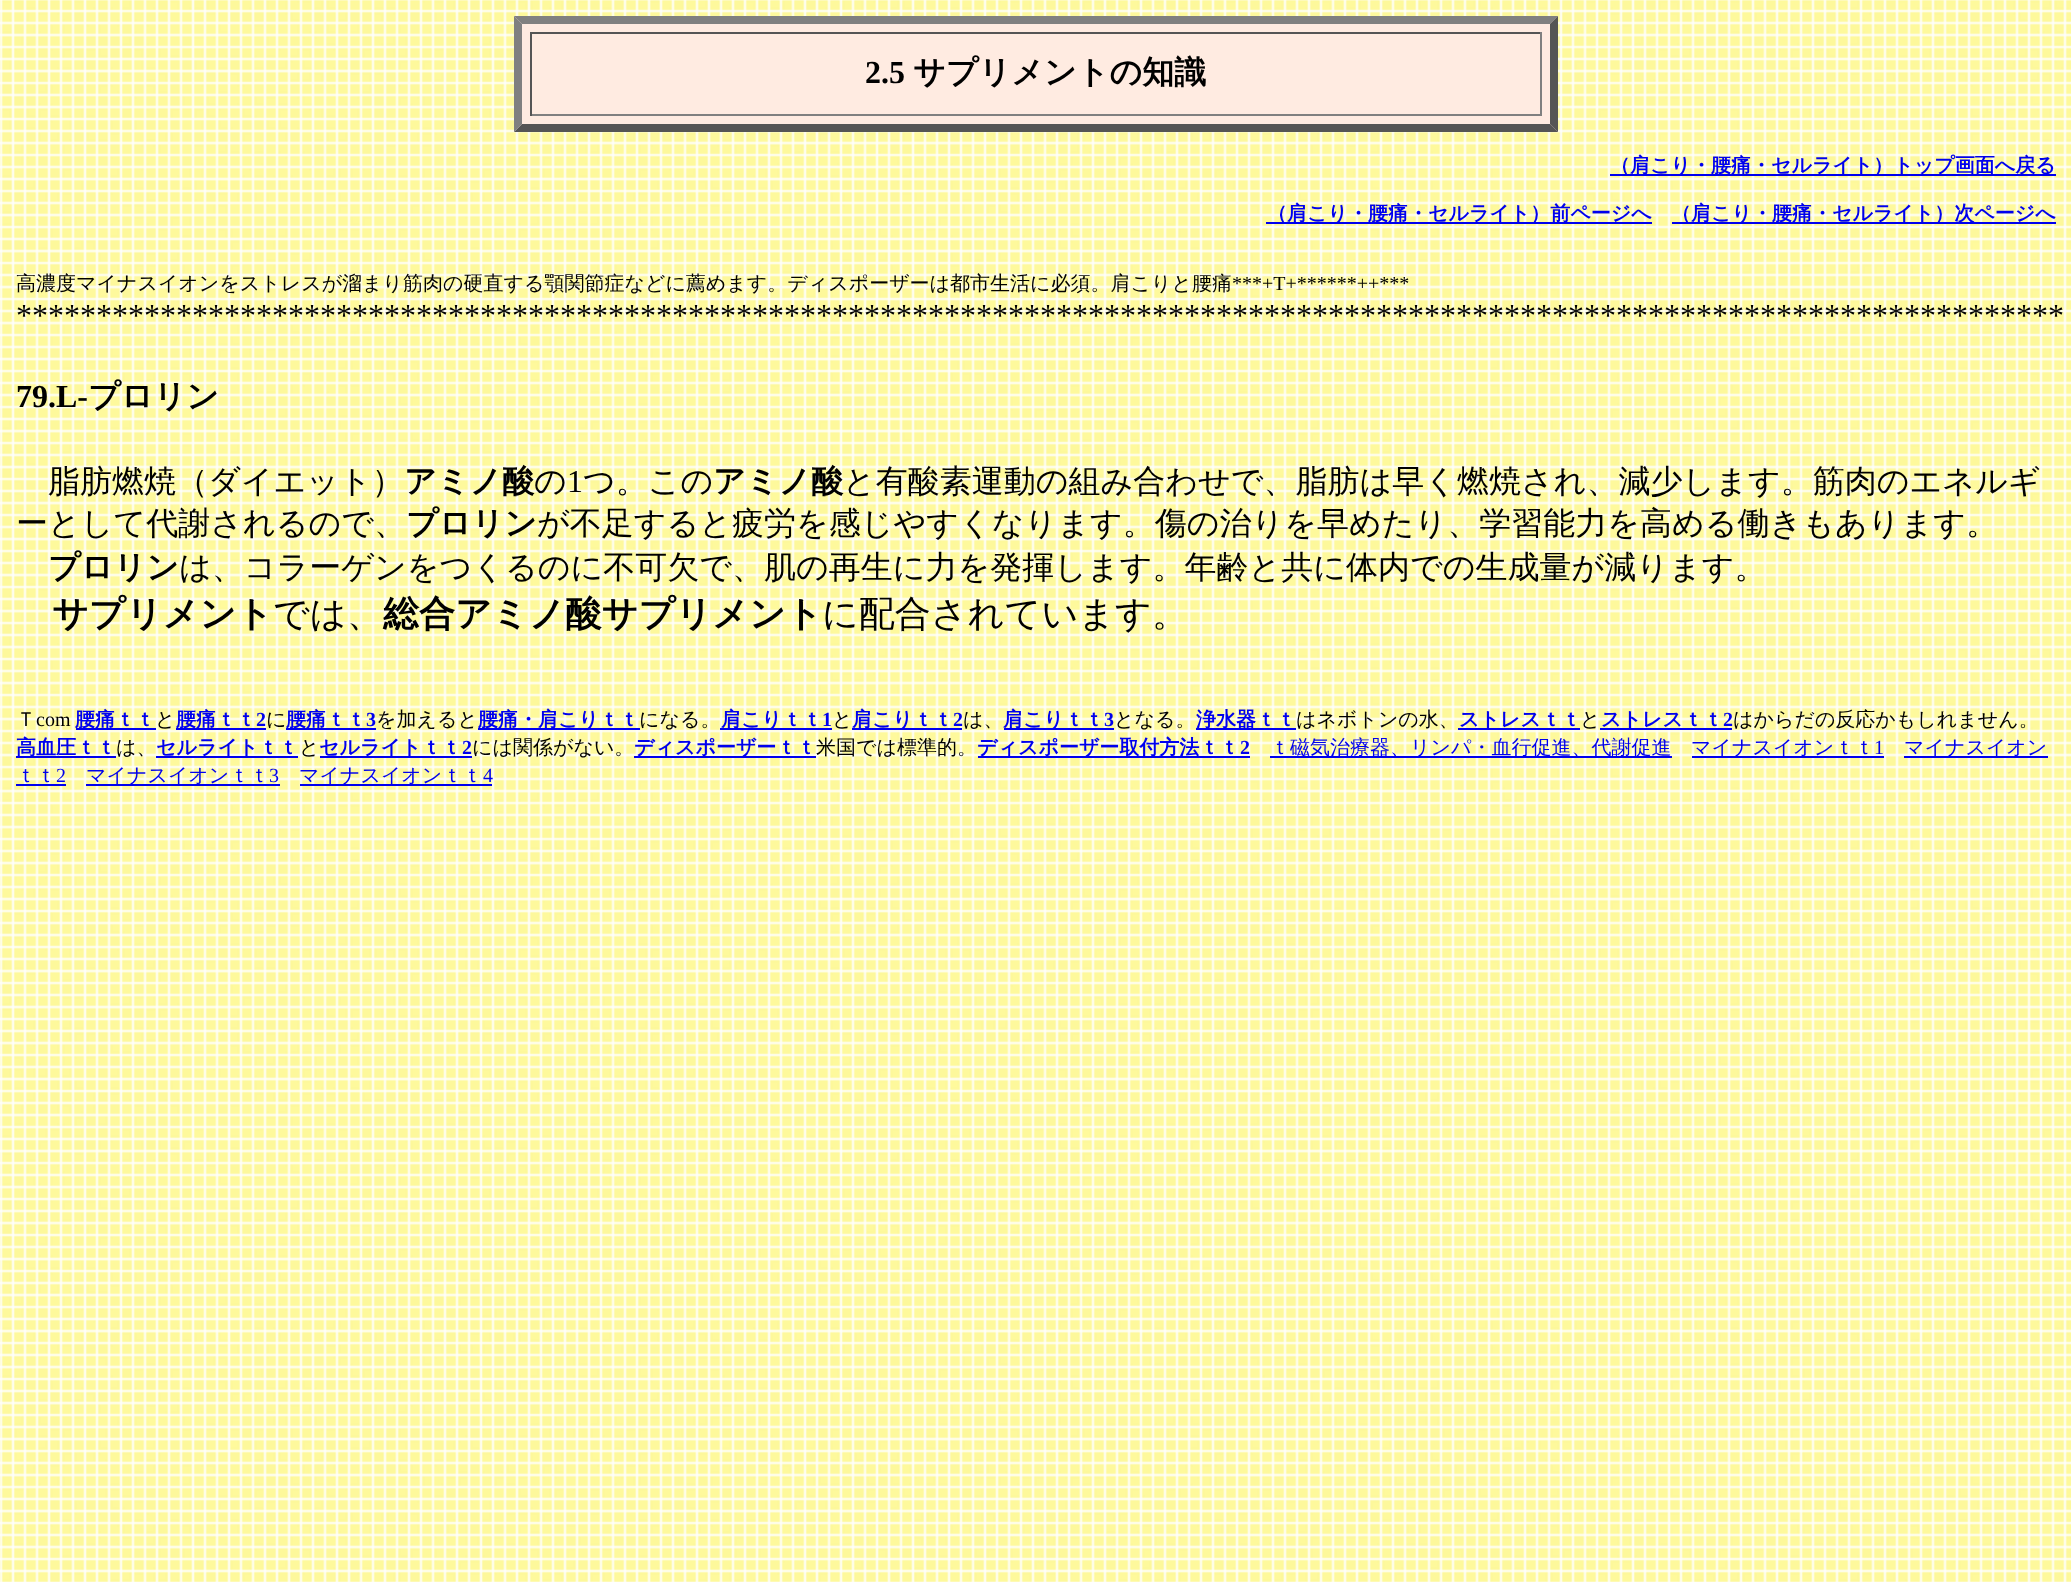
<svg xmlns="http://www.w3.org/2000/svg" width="2071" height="1582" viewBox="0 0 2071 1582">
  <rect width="100%" height="100%" fill="rgb(255,255,255)"/>
  <image x="0" y="0" width="2071" height="1582" href="pic1.png"/>
  <rect x="514" y="16" width="1044" height="116" fill="rgb(255,235,225)"/>
  <path d="M514 16H1558L1550 24H522Z" fill="rgb(128,128,128)"/>
  <path d="M1558 16V132L1550 124V24Z" fill="rgb(85,85,85)"/>
  <path d="M1558 132H514L522 124H1550Z" fill="rgb(85,85,85)"/>
  <path d="M514 132V16L522 24V124Z" fill="rgb(128,128,128)"/>
  <rect x="530" y="32" width="1012" height="2" fill="rgb(85,85,85)"/>
  <rect x="1540" y="32" width="2" height="84" fill="rgb(128,128,128)"/>
  <rect x="530" y="114" width="1012" height="2" fill="rgb(128,128,128)"/>
  <rect x="530" y="32" width="2" height="84" fill="rgb(85,85,85)"/>
  <text x="865" y="83" font-family="Liberation Serif" font-size="32" font-weight="bold" fill="rgb(0,0,0)">2.5</text>
  <text x="913" y="83" font-family="WenQuanYi Zen Hei" font-size="32" font-weight="bold" fill="rgb(0,0,0)">サプリメントの知識</text>
  <rect x="1610" y="174" width="446" height="2" fill="rgb(0,0,238)"/>
  <text x="1610" y="172" font-family="WenQuanYi Zen Hei" font-size="20" font-weight="bold" fill="rgb(0,0,238)">（肩こり・腰痛・セルライト）トップ画面へ戻る</text>
  <rect x="1266" y="222" width="386" height="2" fill="rgb(0,0,238)"/>
  <text x="1267" y="220" font-family="WenQuanYi Zen Hei" font-size="20" font-weight="bold" fill="rgb(0,0,238)">（肩こり・腰痛・セルライト）前ページへ</text>
  <rect x="1672" y="222" width="384" height="2" fill="rgb(0,0,238)"/>
  <text x="1671" y="220" font-family="WenQuanYi Zen Hei" font-size="20" font-weight="bold" fill="rgb(0,0,238)">（肩こり・腰痛・セルライト）次ページへ</text>
  <text x="16" y="290" font-family="WenQuanYi Zen Hei" font-size="20" font-weight="500" fill="rgb(0,0,0)">高濃度マイナスイオンをストレスが溜まり筋肉の硬直する顎関節症などに薦めます。ディスポーザーは都市生活に必須。肩こりと腰痛</text>
  <text x="1232" y="290" font-family="Liberation Serif" font-size="20" fill="rgb(0,0,0)">***+T+******++***</text>
  <text x="16" y="326" font-family="Liberation Serif" font-size="32" fill="rgb(0,0,0)">********************************************************************************************************************************</text>
  <text x="16" y="407" font-family="Liberation Serif" font-size="32" font-weight="bold" fill="rgb(0,0,0)">79.L-</text>
  <text x="88" y="407" font-family="WenQuanYi Zen Hei" font-size="32" font-weight="bold" fill="rgb(0,0,0)">プロリン</text>
  <text x="48" y="492" font-family="WenQuanYi Zen Hei" font-size="32" font-weight="500" fill="rgb(0,0,0)">脂肪燃焼（ダイエット）</text>
  <text x="404" y="492" font-family="WenQuanYi Zen Hei" font-size="32" font-weight="bold" fill="rgb(0,0,0)">アミノ酸</text>
  <text x="534" y="492" font-family="WenQuanYi Zen Hei" font-size="32" font-weight="500" fill="rgb(0,0,0)">の</text>
  <text x="567" y="492" font-family="Liberation Serif" font-size="32" fill="rgb(0,0,0)">1</text>
  <text x="583" y="492" font-family="WenQuanYi Zen Hei" font-size="32" font-weight="500" fill="rgb(0,0,0)">つ。この</text>
  <text x="713" y="492" font-family="WenQuanYi Zen Hei" font-size="32" font-weight="bold" fill="rgb(0,0,0)">アミノ酸</text>
  <g font-family="WenQuanYi Zen Hei" font-size="32" font-weight="500" fill="rgb(0,0,0)">
    <text x="843" y="492">と有酸素運動の組み合わせで、脂肪は早く燃焼され、減少します。筋肉のエネルギ</text>
    <text x="16" y="534">ーとして代謝されるので、</text>
  </g>
  <text x="406" y="534" font-family="WenQuanYi Zen Hei" font-size="32" font-weight="bold" fill="rgb(0,0,0)">プロリン</text>
  <text x="537" y="534" font-family="WenQuanYi Zen Hei" font-size="32" font-weight="500" fill="rgb(0,0,0)">が不足すると疲労を感じやすくなります。傷の治りを早めたり、学習能力を高める働きもあります。</text>
  <text x="48" y="578" font-family="WenQuanYi Zen Hei" font-size="32" font-weight="bold" fill="rgb(0,0,0)">プロリン</text>
  <text x="179" y="578" font-family="WenQuanYi Zen Hei" font-size="32" font-weight="500" fill="rgb(0,0,0)">は、コラーゲンをつくるのに不可欠で、肌の再生に力を発揮します。年齢と共に体内での生成量が減ります。</text>
  <text x="52" y="626" font-family="WenQuanYi Zen Hei" font-size="36" font-weight="bold" fill="rgb(0,0,0)">サプリメント</text>
  <text x="273" y="626" font-family="WenQuanYi Zen Hei" font-size="36" font-weight="500" fill="rgb(0,0,0)">では、</text>
  <text x="383" y="626" font-family="WenQuanYi Zen Hei" font-size="36" font-weight="bold" fill="rgb(0,0,0)">総合アミノ酸サプリメント</text>
  <text x="822" y="626" font-family="WenQuanYi Zen Hei" font-size="36" font-weight="500" fill="rgb(0,0,0)">に配合されています。</text>
  <text x="16" y="726" font-family="WenQuanYi Zen Hei" font-size="20" font-weight="500" fill="rgb(0,0,0)">Ｔ</text>
  <text x="36" y="726" font-family="Liberation Serif" font-size="20" fill="rgb(0,0,0)">com</text>
  <rect x="76" y="728" width="80" height="2" fill="rgb(0,0,238)"/>
  <text x="75" y="726" font-family="WenQuanYi Zen Hei" font-size="20" font-weight="bold" fill="rgb(0,0,238)">腰痛ｔｔ</text>
  <text x="155" y="726" font-family="WenQuanYi Zen Hei" font-size="20" font-weight="500" fill="rgb(0,0,0)">と</text>
  <rect x="176" y="728" width="90" height="2" fill="rgb(0,0,238)"/>
  <text x="176" y="726" font-family="WenQuanYi Zen Hei" font-size="20" font-weight="bold" fill="rgb(0,0,238)">腰痛ｔｔ</text>
  <text x="256" y="726" font-family="Liberation Serif" font-size="20" font-weight="bold" fill="rgb(0,0,238)">2</text>
  <text x="266" y="726" font-family="WenQuanYi Zen Hei" font-size="20" font-weight="500" fill="rgb(0,0,0)">に</text>
  <rect x="286" y="728" width="90" height="2" fill="rgb(0,0,238)"/>
  <text x="286" y="726" font-family="WenQuanYi Zen Hei" font-size="20" font-weight="bold" fill="rgb(0,0,238)">腰痛ｔｔ</text>
  <text x="366" y="726" font-family="Liberation Serif" font-size="20" font-weight="bold" fill="rgb(0,0,238)">3</text>
  <text x="376" y="726" font-family="WenQuanYi Zen Hei" font-size="20" font-weight="500" fill="rgb(0,0,0)">を加えると</text>
  <rect x="478" y="728" width="162" height="2" fill="rgb(0,0,238)"/>
  <text x="478" y="726" font-family="WenQuanYi Zen Hei" font-size="20" font-weight="bold" fill="rgb(0,0,238)">腰痛・肩こりｔｔ</text>
  <text x="639" y="726" font-family="WenQuanYi Zen Hei" font-size="20" font-weight="500" fill="rgb(0,0,0)">になる。</text>
  <rect x="720" y="728" width="112" height="2" fill="rgb(0,0,238)"/>
  <text x="721" y="726" font-family="WenQuanYi Zen Hei" font-size="20" font-weight="bold" fill="rgb(0,0,238)">肩こりｔｔ</text>
  <text x="822" y="726" font-family="Liberation Serif" font-size="20" font-weight="bold" fill="rgb(0,0,238)">1</text>
  <text x="832" y="726" font-family="WenQuanYi Zen Hei" font-size="20" font-weight="500" fill="rgb(0,0,0)">と</text>
  <rect x="852" y="728" width="110" height="2" fill="rgb(0,0,238)"/>
  <text x="852" y="726" font-family="WenQuanYi Zen Hei" font-size="20" font-weight="bold" fill="rgb(0,0,238)">肩こりｔｔ</text>
  <text x="953" y="726" font-family="Liberation Serif" font-size="20" font-weight="bold" fill="rgb(0,0,238)">2</text>
  <text x="963" y="726" font-family="WenQuanYi Zen Hei" font-size="20" font-weight="500" fill="rgb(0,0,0)">は、</text>
  <rect x="1004" y="728" width="110" height="2" fill="rgb(0,0,238)"/>
  <text x="1003" y="726" font-family="WenQuanYi Zen Hei" font-size="20" font-weight="bold" fill="rgb(0,0,238)">肩こりｔｔ</text>
  <text x="1104" y="726" font-family="Liberation Serif" font-size="20" font-weight="bold" fill="rgb(0,0,238)">3</text>
  <text x="1114" y="726" font-family="WenQuanYi Zen Hei" font-size="20" font-weight="500" fill="rgb(0,0,0)">となる。</text>
  <rect x="1196" y="728" width="100" height="2" fill="rgb(0,0,238)"/>
  <text x="1196" y="726" font-family="WenQuanYi Zen Hei" font-size="20" font-weight="bold" fill="rgb(0,0,238)">浄水器ｔｔ</text>
  <text x="1296" y="726" font-family="WenQuanYi Zen Hei" font-size="20" font-weight="500" fill="rgb(0,0,0)">はネボトンの水、</text>
  <rect x="1458" y="728" width="122" height="2" fill="rgb(0,0,238)"/>
  <text x="1459" y="726" font-family="WenQuanYi Zen Hei" font-size="20" font-weight="bold" fill="rgb(0,0,238)">ストレスｔｔ</text>
  <text x="1580" y="726" font-family="WenQuanYi Zen Hei" font-size="20" font-weight="500" fill="rgb(0,0,0)">と</text>
  <rect x="1600" y="728" width="132" height="2" fill="rgb(0,0,238)"/>
  <text x="1601" y="726" font-family="WenQuanYi Zen Hei" font-size="20" font-weight="bold" fill="rgb(0,0,238)">ストレスｔｔ</text>
  <text x="1723" y="726" font-family="Liberation Serif" font-size="20" font-weight="bold" fill="rgb(0,0,238)">2</text>
  <text x="1733" y="726" font-family="WenQuanYi Zen Hei" font-size="20" font-weight="500" fill="rgb(0,0,0)">はからだの反応かもしれません。</text>
  <rect x="16" y="756" width="100" height="2" fill="rgb(0,0,238)"/>
  <text x="16" y="754" font-family="WenQuanYi Zen Hei" font-size="20" font-weight="bold" fill="rgb(0,0,238)">高血圧ｔｔ</text>
  <text x="116" y="754" font-family="WenQuanYi Zen Hei" font-size="20" font-weight="500" fill="rgb(0,0,0)">は、</text>
  <rect x="156" y="756" width="142" height="2" fill="rgb(0,0,238)"/>
  <text x="156" y="754" font-family="WenQuanYi Zen Hei" font-size="20" font-weight="bold" fill="rgb(0,0,238)">セルライトｔｔ</text>
  <text x="299" y="754" font-family="WenQuanYi Zen Hei" font-size="20" font-weight="500" fill="rgb(0,0,0)">と</text>
  <rect x="320" y="756" width="152" height="2" fill="rgb(0,0,238)"/>
  <text x="319" y="754" font-family="WenQuanYi Zen Hei" font-size="20" font-weight="bold" fill="rgb(0,0,238)">セルライトｔｔ</text>
  <text x="462" y="754" font-family="Liberation Serif" font-size="20" font-weight="bold" fill="rgb(0,0,238)">2</text>
  <text x="472" y="754" font-family="WenQuanYi Zen Hei" font-size="20" font-weight="500" fill="rgb(0,0,0)">には関係がない。</text>
  <rect x="634" y="756" width="182" height="2" fill="rgb(0,0,238)"/>
  <text x="634" y="754" font-family="WenQuanYi Zen Hei" font-size="20" font-weight="bold" fill="rgb(0,0,238)">ディスポーザーｔｔ</text>
  <text x="816" y="754" font-family="WenQuanYi Zen Hei" font-size="20" font-weight="500" fill="rgb(0,0,0)">米国では標準的。</text>
  <rect x="978" y="756" width="272" height="2" fill="rgb(0,0,238)"/>
  <text x="977" y="754" font-family="WenQuanYi Zen Hei" font-size="20" font-weight="bold" fill="rgb(0,0,238)">ディスポーザー取付方法ｔｔ</text>
  <text x="1240" y="754" font-family="Liberation Serif" font-size="20" font-weight="bold" fill="rgb(0,0,238)">2</text>
  <rect x="1270" y="756" width="402" height="2" fill="rgb(0,0,238)"/>
  <text x="1270" y="754" font-family="WenQuanYi Zen Hei" font-size="20" font-weight="500" fill="rgb(0,0,238)">ｔ磁気治療器、リンパ・血行促進、代謝促進</text>
  <rect x="1692" y="756" width="192" height="2" fill="rgb(0,0,238)"/>
  <text x="1691" y="754" font-family="WenQuanYi Zen Hei" font-size="20" font-weight="500" fill="rgb(0,0,238)">マイナスイオンｔｔ</text>
  <text x="1874" y="754" font-family="Liberation Serif" font-size="20" fill="rgb(0,0,238)">1</text>
  <rect x="1904" y="756" width="144" height="2" fill="rgb(0,0,238)"/>
  <g font-family="WenQuanYi Zen Hei" font-size="20" font-weight="500" fill="rgb(0,0,238)">
    <text x="1904" y="754">マイナスイオン</text>
    <text x="16" y="782">ｔｔ</text>
  </g>
  <rect x="16" y="784" width="50" height="2" fill="rgb(0,0,238)"/>
  <text x="56" y="782" font-family="Liberation Serif" font-size="20" fill="rgb(0,0,238)">2</text>
  <rect x="86" y="784" width="194" height="2" fill="rgb(0,0,238)"/>
  <text x="86" y="782" font-family="WenQuanYi Zen Hei" font-size="20" font-weight="500" fill="rgb(0,0,238)">マイナスイオンｔｔ</text>
  <text x="269" y="782" font-family="Liberation Serif" font-size="20" fill="rgb(0,0,238)">3</text>
  <rect x="300" y="784" width="192" height="2" fill="rgb(0,0,238)"/>
  <text x="299" y="782" font-family="WenQuanYi Zen Hei" font-size="20" font-weight="500" fill="rgb(0,0,238)">マイナスイオンｔｔ</text>
  <text x="483" y="782" font-family="Liberation Serif" font-size="20" fill="rgb(0,0,238)">4</text>
</svg>
